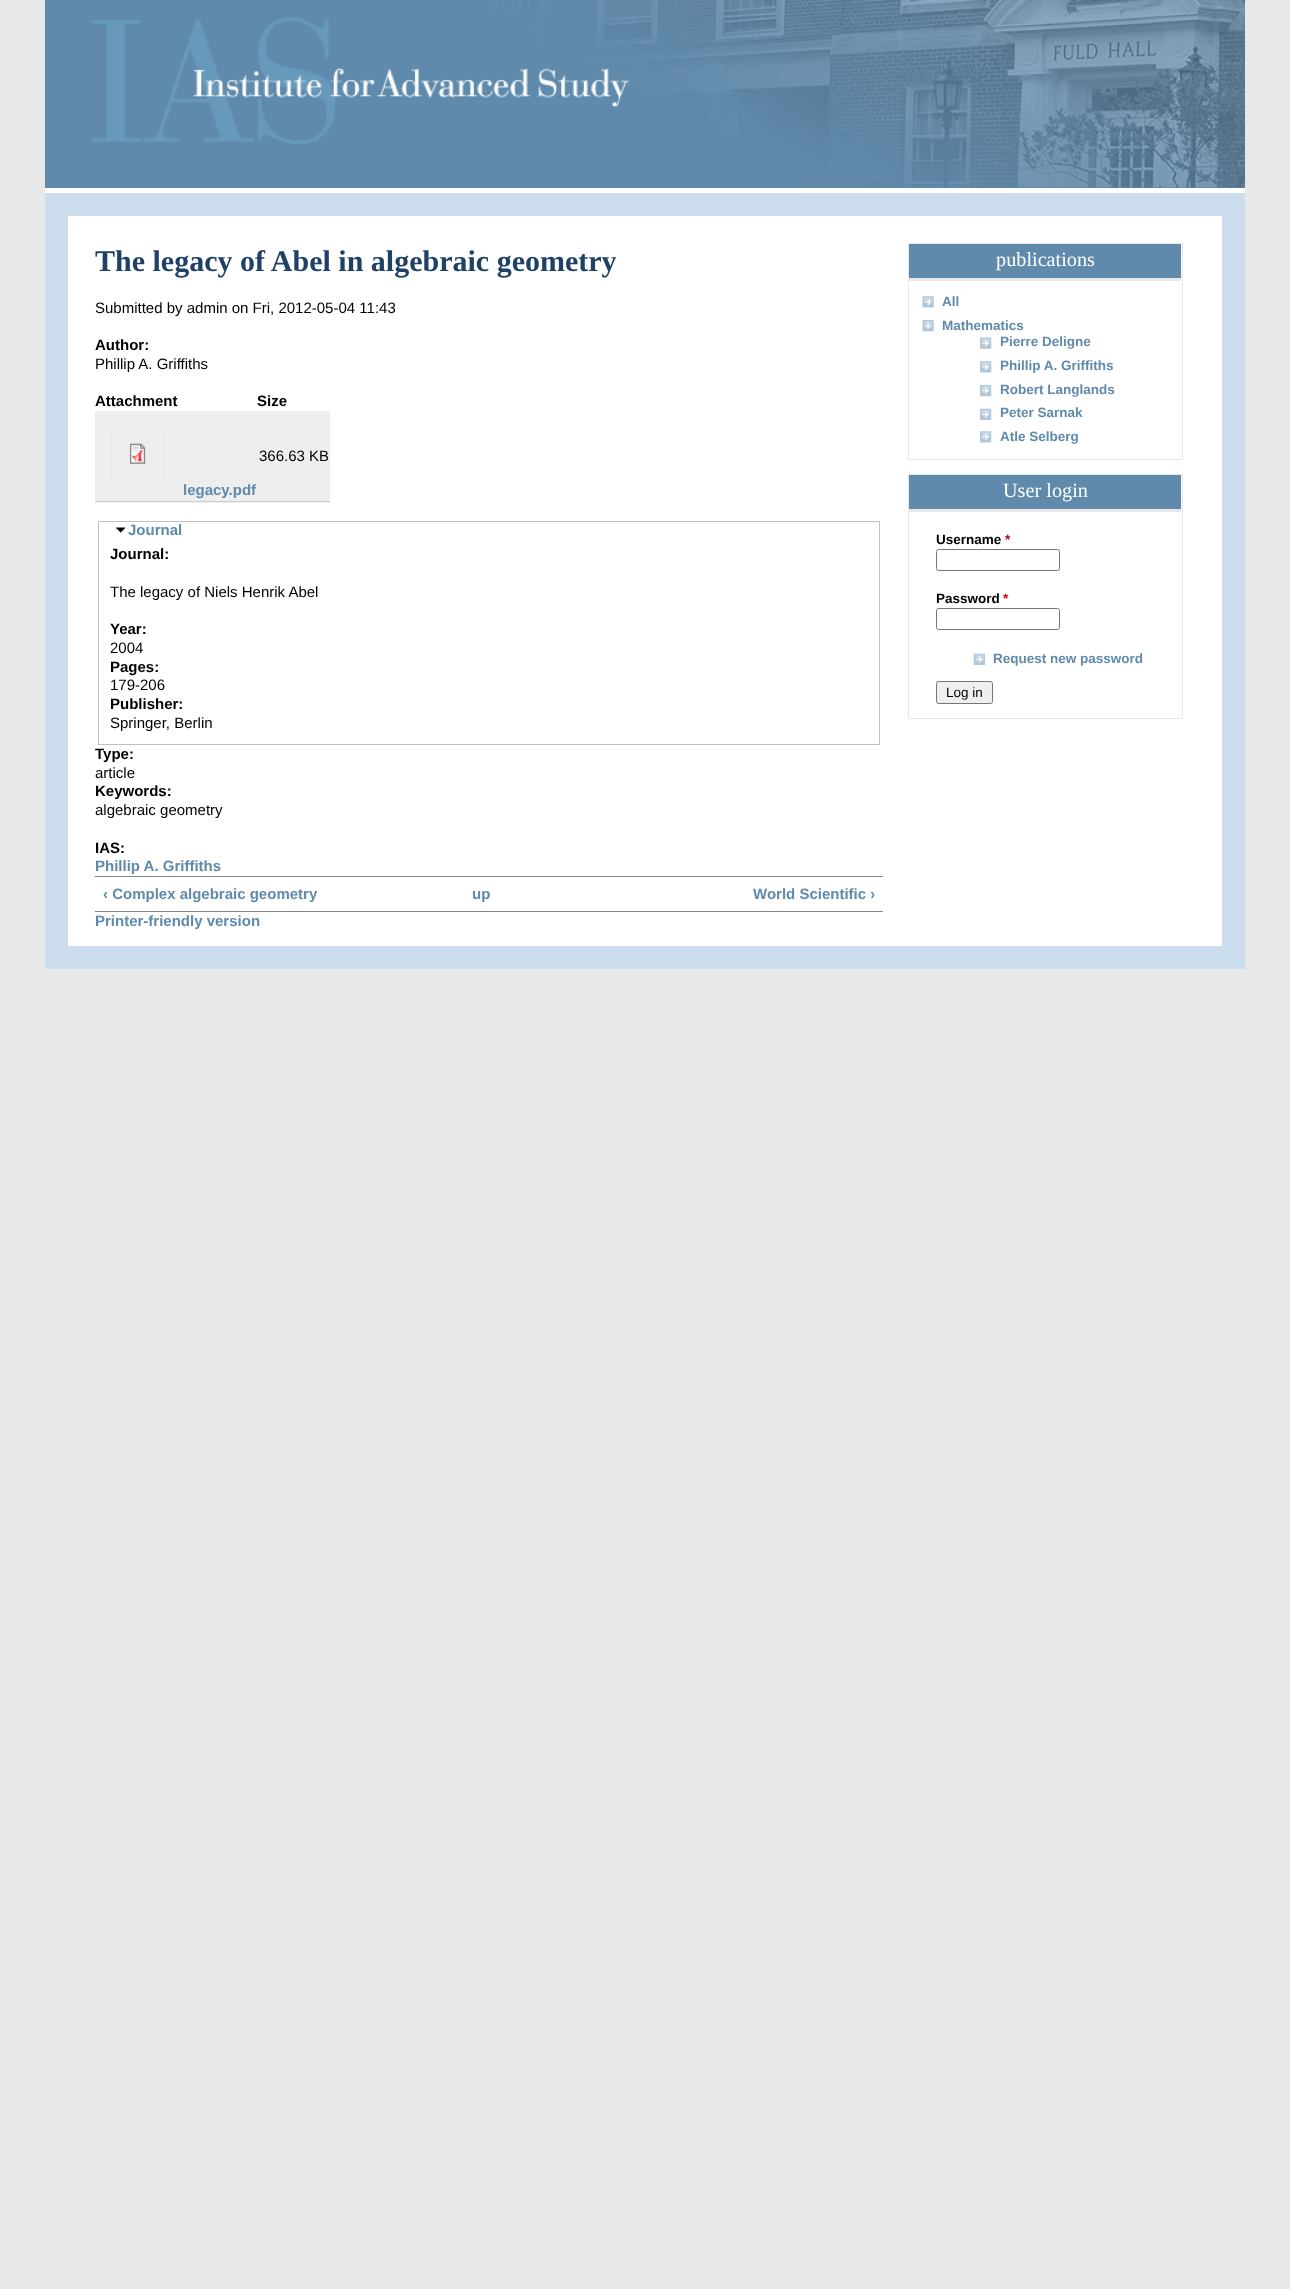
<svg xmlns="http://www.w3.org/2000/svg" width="1290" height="2289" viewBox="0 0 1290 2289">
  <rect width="100%" height="100%" fill="rgb(232,232,232)"/>
  <rect x="45" y="0" width="1200" height="188" fill="rgb(96,138,172)"/>
  <image x="91" y="0" width="1154" height="188" href="pic1.png"/>
  <rect x="45" y="188" width="1200" height="5" fill="rgb(255,255,255)"/>
  <rect x="56.5" y="204.5" width="1177" height="753" fill="rgb(255,255,255)" stroke="rgb(204,222,237)" stroke-width="23"/>
  <text x="95" y="271" font-family="Liberation Serif" font-size="30" font-weight="bold" fill="rgb(31,65,101)">The legacy of Abel in algebraic geometry</text>
  <text x="95" y="313" font-family="Liberation Sans" font-size="15" fill="rgb(0,0,0)">Submitted by admin on Fri, 2012-05-04 11:43</text>
  <text x="95" y="350" font-family="Liberation Sans" font-size="15" font-weight="bold" fill="rgb(0,0,0)">Author:</text>
  <text x="95" y="369" font-family="Liberation Sans" font-size="15" fill="rgb(0,0,0)">Phillip A. Griffiths</text>
  <g font-family="Liberation Sans" font-size="15" font-weight="bold" fill="rgb(0,0,0)">
    <text x="95" y="406">Attachment</text>
    <text x="257" y="406">Size</text>
  </g>
  <rect x="95" y="411" width="235" height="92" fill="rgb(238,238,238)"/>
  <rect x="95" y="501" width="235" height="1" fill="rgb(204,204,204)"/>
  <text x="259" y="461" font-family="Liberation Sans" font-size="15" fill="rgb(0,0,0)">366.63 KB</text>
  <rect x="111.5" y="428.5" width="52" height="51" fill="none" stroke="rgb(232,232,232)"/>
  <image x="129" y="443" width="17" height="21" href="pic2.png"/>
  <text x="183" y="495" font-family="Liberation Sans" font-size="15" font-weight="bold" fill="rgb(96,138,172)">legacy.pdf</text>
  <rect x="98.5" y="521.5" width="781" height="223" fill="none" stroke="rgb(192,192,192)"/>
  <image x="116" y="527" width="9" height="6" href="pic3.png"/>
  <text x="128" y="535" font-family="Liberation Sans" font-size="15" font-weight="bold" fill="rgb(96,138,172)">Journal</text>
  <text x="110" y="559" font-family="Liberation Sans" font-size="15" font-weight="bold" fill="rgb(0,0,0)">Journal:</text>
  <text x="110" y="597" font-family="Liberation Sans" font-size="15" fill="rgb(0,0,0)">The legacy of Niels Henrik Abel</text>
  <text x="110" y="634" font-family="Liberation Sans" font-size="15" font-weight="bold" fill="rgb(0,0,0)">Year:</text>
  <text x="110" y="653" font-family="Liberation Sans" font-size="15" fill="rgb(0,0,0)">2004</text>
  <text x="110" y="672" font-family="Liberation Sans" font-size="15" font-weight="bold" fill="rgb(0,0,0)">Pages:</text>
  <text x="110" y="690" font-family="Liberation Sans" font-size="15" fill="rgb(0,0,0)">179-206</text>
  <text x="110" y="709" font-family="Liberation Sans" font-size="15" font-weight="bold" fill="rgb(0,0,0)">Publisher:</text>
  <text x="110" y="728" font-family="Liberation Sans" font-size="15" fill="rgb(0,0,0)">Springer, Berlin</text>
  <text x="95" y="759" font-family="Liberation Sans" font-size="15" font-weight="bold" fill="rgb(0,0,0)">Type:</text>
  <text x="95" y="778" font-family="Liberation Sans" font-size="15" fill="rgb(0,0,0)">article</text>
  <text x="95" y="796" font-family="Liberation Sans" font-size="15" font-weight="bold" fill="rgb(0,0,0)">Keywords:</text>
  <text x="95" y="815" font-family="Liberation Sans" font-size="15" fill="rgb(0,0,0)">algebraic geometry</text>
  <text x="95" y="853" font-family="Liberation Sans" font-size="15" font-weight="bold" fill="rgb(0,0,0)">IAS:</text>
  <text x="95" y="871" font-family="Liberation Sans" font-size="15" font-weight="bold" fill="rgb(96,138,172)">Phillip A. Griffiths</text>
  <rect x="95" y="876" width="788" height="1" fill="rgb(136,136,136)"/>
  <rect x="95" y="911" width="788" height="1" fill="rgb(136,136,136)"/>
  <g font-family="Liberation Sans" font-size="15" font-weight="bold" fill="rgb(96,138,172)">
    <text x="103" y="899">‹ Complex algebraic geometry</text>
    <text x="472" y="899">up</text>
    <text x="753" y="899">World Scientific ›</text>
    <text x="95" y="926">Printer-friendly version</text>
  </g>
  <rect x="908.5" y="243.5" width="274" height="216" fill="none" stroke="rgb(232,232,232)"/>
  <rect x="909" y="244" width="272" height="34" fill="rgb(96,138,172)"/>
  <rect x="909" y="278" width="272" height="3" fill="rgb(232,232,232)"/>
  <text x="996" y="266" font-family="Liberation Serif" font-size="20.25" fill="rgb(255,255,255)">publications</text>
  <image x="922" y="296" width="12" height="12" href="pic4.png"/>
  <text x="942" y="306" font-family="Liberation Sans" font-size="13.5" font-weight="bold" fill="rgb(96,138,172)">All</text>
  <image x="922" y="320" width="12" height="12" href="pic5.png"/>
  <text x="942" y="330" font-family="Liberation Sans" font-size="13.5" font-weight="bold" fill="rgb(96,138,172)">Mathematics</text>
  <image x="980" y="337" width="12" height="12" href="pic6.png"/>
  <text x="1000" y="346" font-family="Liberation Sans" font-size="13.5" font-weight="bold" fill="rgb(96,138,172)">Pierre Deligne</text>
  <image x="980" y="361" width="12" height="12" href="pic7.png"/>
  <text x="1000" y="370" font-family="Liberation Sans" font-size="13.5" font-weight="bold" fill="rgb(96,138,172)">Phillip A. Griffiths</text>
  <image x="980" y="385" width="12" height="12" href="pic8.png"/>
  <text x="1000" y="394" font-family="Liberation Sans" font-size="13.5" font-weight="bold" fill="rgb(96,138,172)">Robert Langlands</text>
  <image x="980" y="408" width="12" height="12" href="pic9.png"/>
  <text x="1000" y="417" font-family="Liberation Sans" font-size="13.5" font-weight="bold" fill="rgb(96,138,172)">Peter Sarnak</text>
  <image x="980" y="431" width="12" height="12" href="pic7.png"/>
  <text x="1000" y="441" font-family="Liberation Sans" font-size="13.5" font-weight="bold" fill="rgb(96,138,172)">Atle Selberg</text>
  <rect x="908.5" y="474.5" width="274" height="244" fill="none" stroke="rgb(232,232,232)"/>
  <rect x="909" y="475" width="272" height="34" fill="rgb(96,138,172)"/>
  <rect x="909" y="509" width="272" height="3" fill="rgb(232,232,232)"/>
  <text x="1003" y="497" font-family="Liberation Serif" font-size="20.25" fill="rgb(255,255,255)">User login</text>
  <text x="936" y="544" font-family="Liberation Sans" font-size="13.5" font-weight="bold" fill="rgb(0,0,0)">Username</text>
  <text x="1005" y="544" font-family="Liberation Sans" font-size="13.5" font-weight="bold" fill="rgb(204,0,0)">*</text>
  <rect x="936.5" y="549.5" width="123" height="21" rx="2" fill="none" stroke="rgb(118,118,118)"/>
  <text x="936" y="603" font-family="Liberation Sans" font-size="13.5" font-weight="bold" fill="rgb(0,0,0)">Password</text>
  <text x="1003" y="603" font-family="Liberation Sans" font-size="13.5" font-weight="bold" fill="rgb(204,0,0)">*</text>
  <rect x="936.5" y="608.5" width="123" height="21" rx="2" fill="none" stroke="rgb(118,118,118)"/>
  <image x="973" y="653" width="12" height="12" href="pic10.png"/>
  <text x="993" y="663" font-family="Liberation Sans" font-size="13.5" font-weight="bold" fill="rgb(96,138,172)">Request new password</text>
  <rect x="936.5" y="681.5" width="56" height="22" rx="2" fill="rgb(239,239,239)" stroke="rgb(118,118,118)"/>
  <text x="946" y="697" font-family="Liberation Sans" font-size="13.5" fill="rgb(0,0,0)">Log in</text>
</svg>
